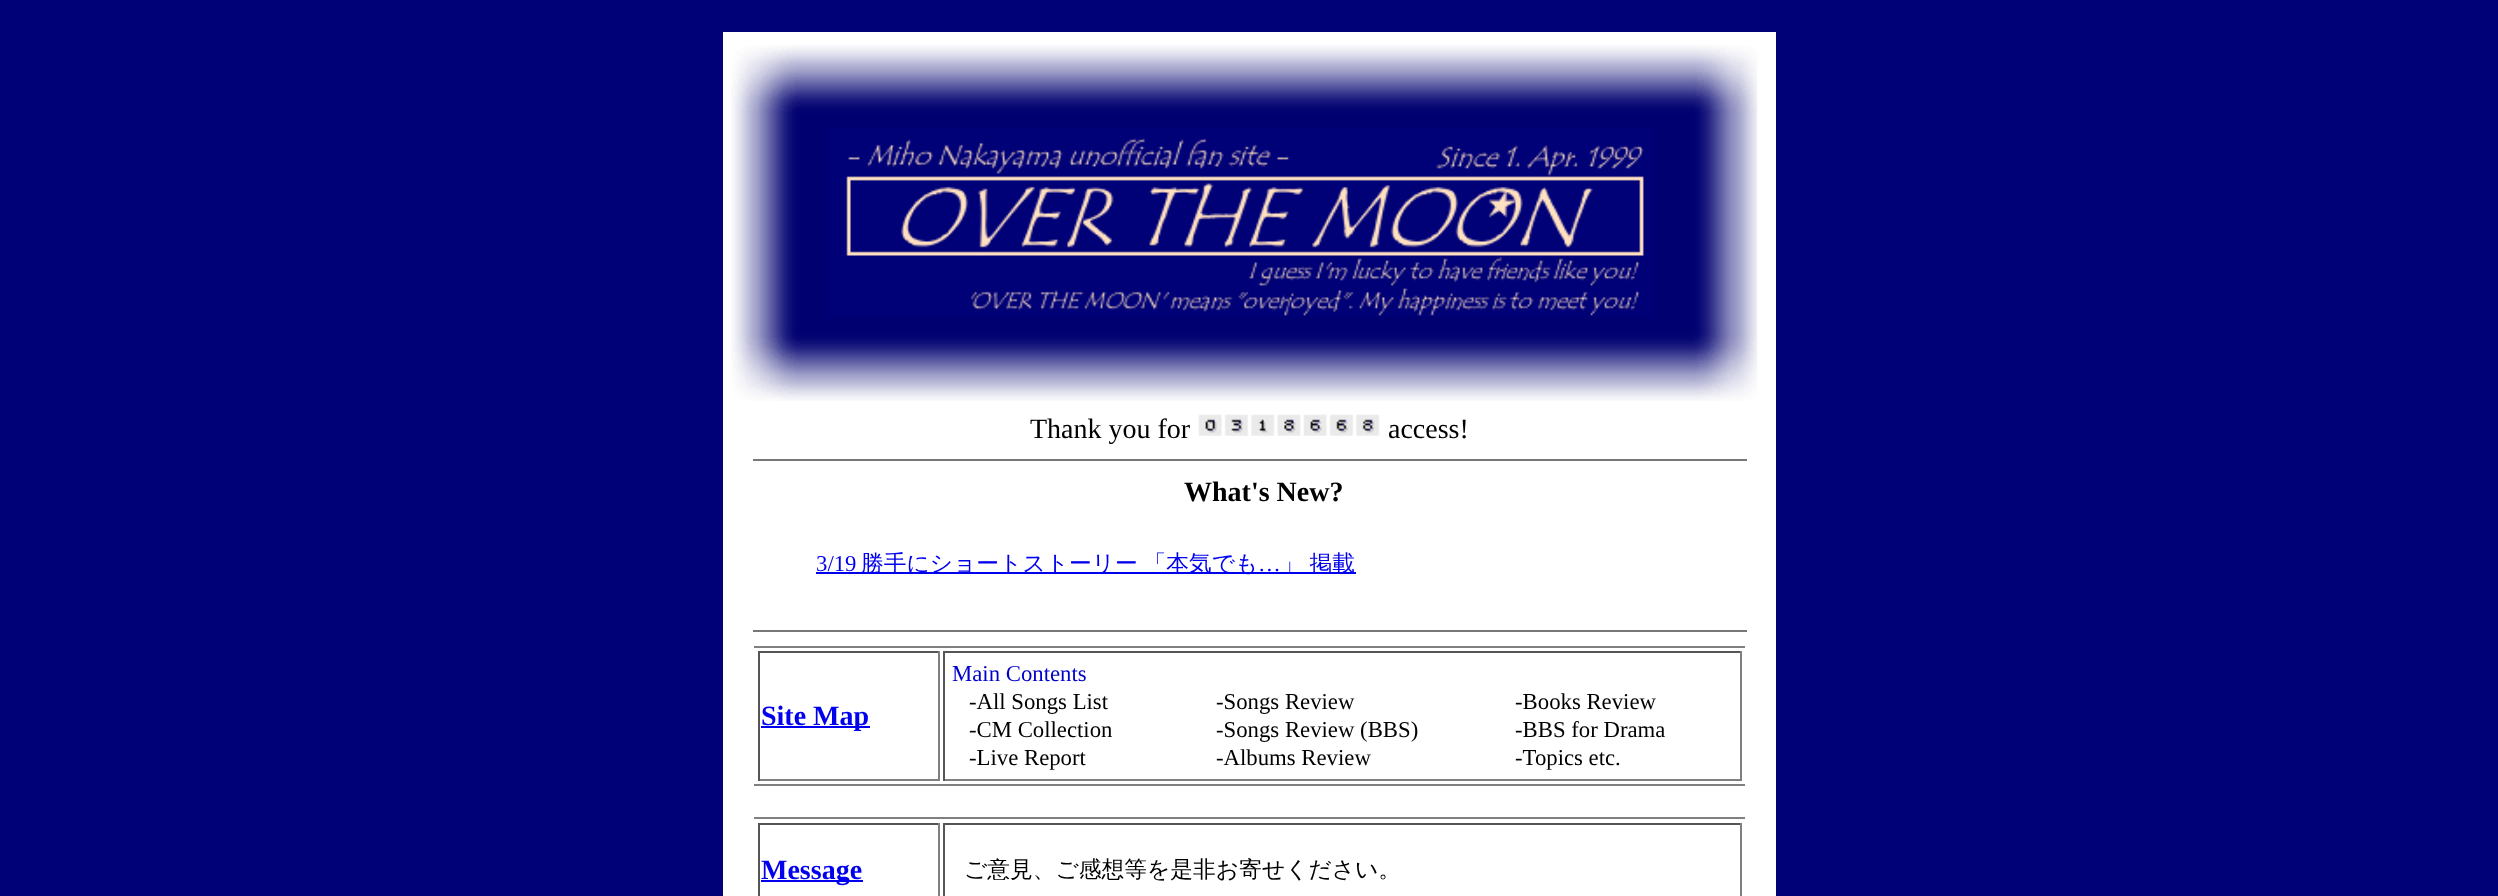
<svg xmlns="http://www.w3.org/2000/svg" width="2498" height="896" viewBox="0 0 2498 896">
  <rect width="100%" height="100%" fill="rgb(0,0,119)"/>
  <rect x="723" y="32" width="1053" height="864" fill="rgb(255,255,255)"/>
  <image x="731" y="45" width="1027" height="356" href="pic1.png"/>
  <text x="1030" y="438" font-family="Liberation Serif" font-size="28" fill="rgb(0,0,0)">Thank you for</text>
  <image x="1198" y="414" width="182" height="22" href="pic2.png"/>
  <text x="1388" y="438" font-family="Liberation Serif" font-size="28" fill="rgb(0,0,0)">access!</text>
  <rect x="753" y="459" width="994" height="2" fill="rgb(119,119,119)"/>
  <text x="1184" y="501" font-family="Liberation Serif" font-size="28" font-weight="bold" fill="rgb(0,0,0)">What's New?</text>
  <text x="816" y="571" font-family="Liberation Serif" font-size="22.75" fill="rgb(0,0,238)">3/19</text>
  <rect x="816" y="572" width="540" height="2" fill="rgb(0,0,238)"/>
  <text x="861" y="571" word-spacing="-1" font-family="WenQuanYi Zen Hei" font-size="22.75" font-weight="500" fill="rgb(0,0,238)">勝手にショートストーリー 「本気でも</text>
  <text x="1258" y="571" font-family="Liberation Serif" font-size="22.75" fill="rgb(0,0,238)">…</text>
  <text x="1281" y="571" word-spacing="-1" font-family="WenQuanYi Zen Hei" font-size="22.75" font-weight="500" fill="rgb(0,0,238)">」 掲載</text>
  <rect x="753" y="630" width="994" height="2" fill="rgb(119,119,119)"/>
  <rect x="754" y="646" width="991" height="2" fill="rgb(128,128,128)"/>
  <rect x="754" y="784" width="991" height="2" fill="rgb(128,128,128)"/>
  <rect x="758" y="651" width="182" height="2" fill="rgb(85,85,85)"/>
  <rect x="938" y="651" width="2" height="130" fill="rgb(128,128,128)"/>
  <rect x="758" y="779" width="182" height="2" fill="rgb(128,128,128)"/>
  <rect x="758" y="651" width="2" height="130" fill="rgb(85,85,85)"/>
  <rect x="761" y="726" width="109" height="2" fill="rgb(0,0,238)"/>
  <text x="761" y="725" font-family="Liberation Serif" font-size="28" font-weight="bold" fill="rgb(0,0,238)">Site Map</text>
  <rect x="943" y="651" width="798" height="2" fill="rgb(85,85,85)"/>
  <rect x="1740" y="651" width="2" height="130" fill="rgb(128,128,128)"/>
  <rect x="943" y="779" width="798" height="2" fill="rgb(128,128,128)"/>
  <rect x="943" y="651" width="2" height="130" fill="rgb(85,85,85)"/>
  <text x="952" y="681" font-family="Liberation Serif" font-size="22.75" fill="rgb(0,0,204)">Main Contents</text>
  <g font-family="Liberation Serif" font-size="22.75" fill="rgb(0,0,0)">
    <text>
      <tspan x="969" y="709">-All Songs List</tspan>
      <tspan x="969" y="737">-CM Collection</tspan>
      <tspan x="969" y="765">-Live Report</tspan>
    </text>
    <text>
      <tspan x="1216" y="709">-Songs Review</tspan>
      <tspan x="1216" y="737">-Songs Review (BBS)</tspan>
      <tspan x="1216" y="765">-Albums Review</tspan>
    </text>
    <text>
      <tspan x="1515" y="709">-Books Review</tspan>
      <tspan x="1515" y="737">-BBS for Drama</tspan>
      <tspan x="1515" y="765">-Topics etc.</tspan>
    </text>
  </g>
  <rect x="754" y="817" width="991" height="2" fill="rgb(128,128,128)"/>
  <rect x="758" y="823" width="182" height="2" fill="rgb(85,85,85)"/>
  <rect x="938" y="823" width="2" height="73" fill="rgb(128,128,128)"/>
  <rect x="758" y="823" width="2" height="73" fill="rgb(85,85,85)"/>
  <rect x="761" y="880" width="102" height="2" fill="rgb(0,0,238)"/>
  <text x="761" y="879" font-family="Liberation Serif" font-size="28" font-weight="bold" fill="rgb(0,0,238)">Message</text>
  <rect x="943" y="823" width="798" height="2" fill="rgb(85,85,85)"/>
  <rect x="1740" y="823" width="2" height="73" fill="rgb(128,128,128)"/>
  <rect x="943" y="823" width="2" height="73" fill="rgb(85,85,85)"/>
  <text x="964" y="877" font-family="WenQuanYi Zen Hei" font-size="22.75" font-weight="500" fill="rgb(0,0,0)">ご意見、ご感想等を是非お寄せください。</text>
</svg>
